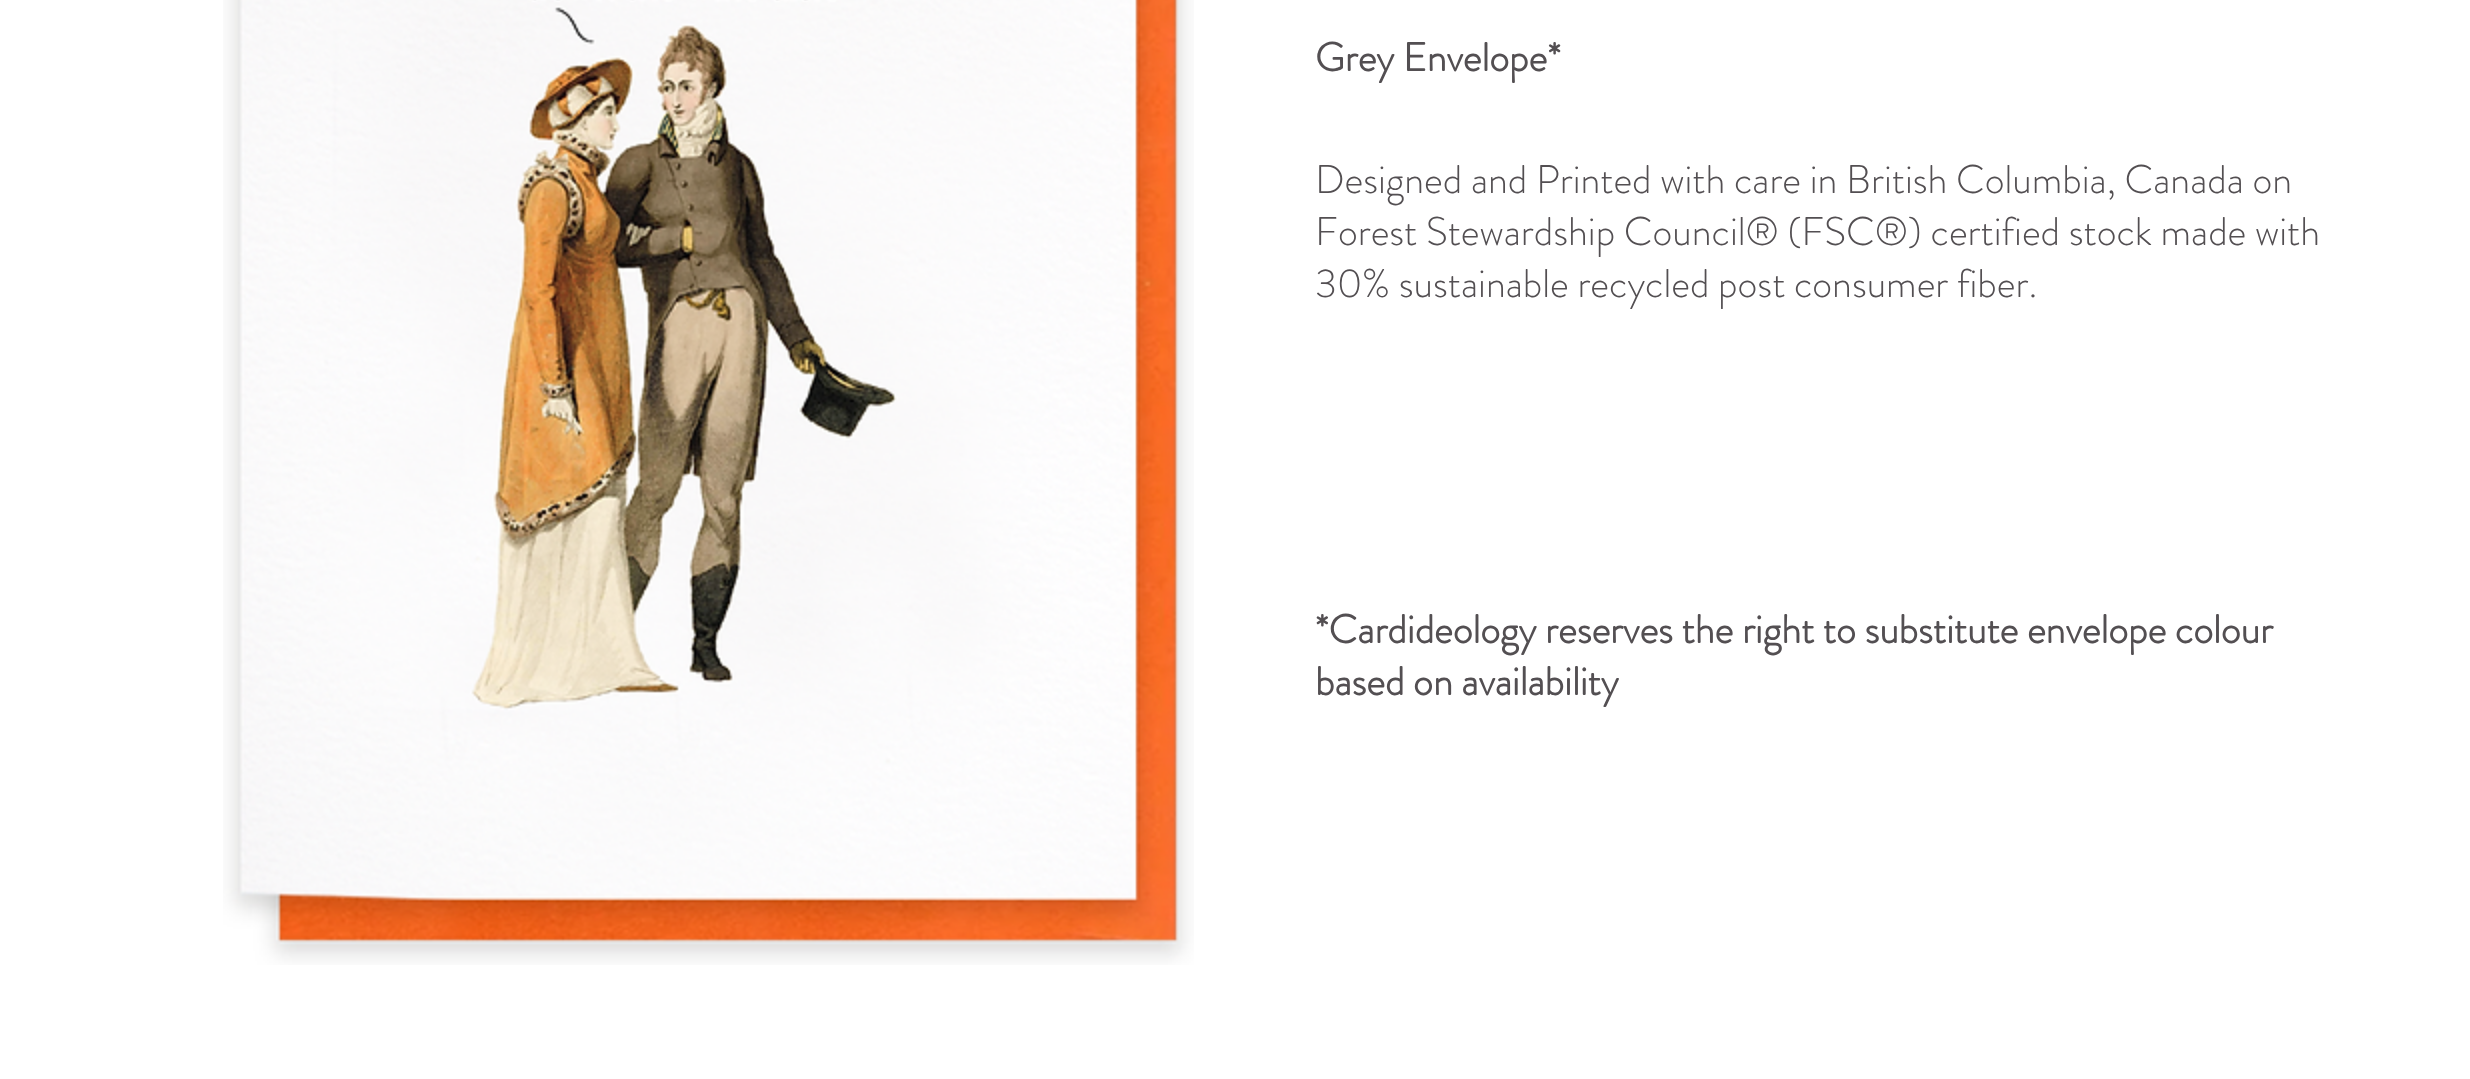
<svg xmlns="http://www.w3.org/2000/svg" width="2470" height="1079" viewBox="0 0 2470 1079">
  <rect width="100%" height="100%" fill="rgb(255,255,255)"/>
  <image x="223" y="0" width="971" height="965" href="pic1.png"/>
  <text x="1315" y="71" font-family="'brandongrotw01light'" font-size="40" font-weight="bold" fill="rgb(83,79,82)">Grey Envelope*</text>
  <g font-family="'brandongrotw01light'" font-size="40" font-weight="300" fill="rgb(83,79,82)">
    <text>
      <tspan x="1315" y="193">Designed and Printed with care in British Columbia, Canada on</tspan>
      <tspan x="1315" y="245">Forest Stewardship Council® (FSC®) certified stock made with</tspan>
      <tspan x="1315" y="297">30% sustainable recycled post consumer fiber.</tspan>
    </text>
  </g>
  <g font-family="'brandongrotw01light'" font-size="40" font-weight="bold" fill="rgb(83,79,82)">
    <text>
      <tspan x="1315" y="643">*Cardideology reserves the right to substitute envelope colour</tspan>
      <tspan x="1315" y="695">based on availability</tspan>
    </text>
  </g>
</svg>
